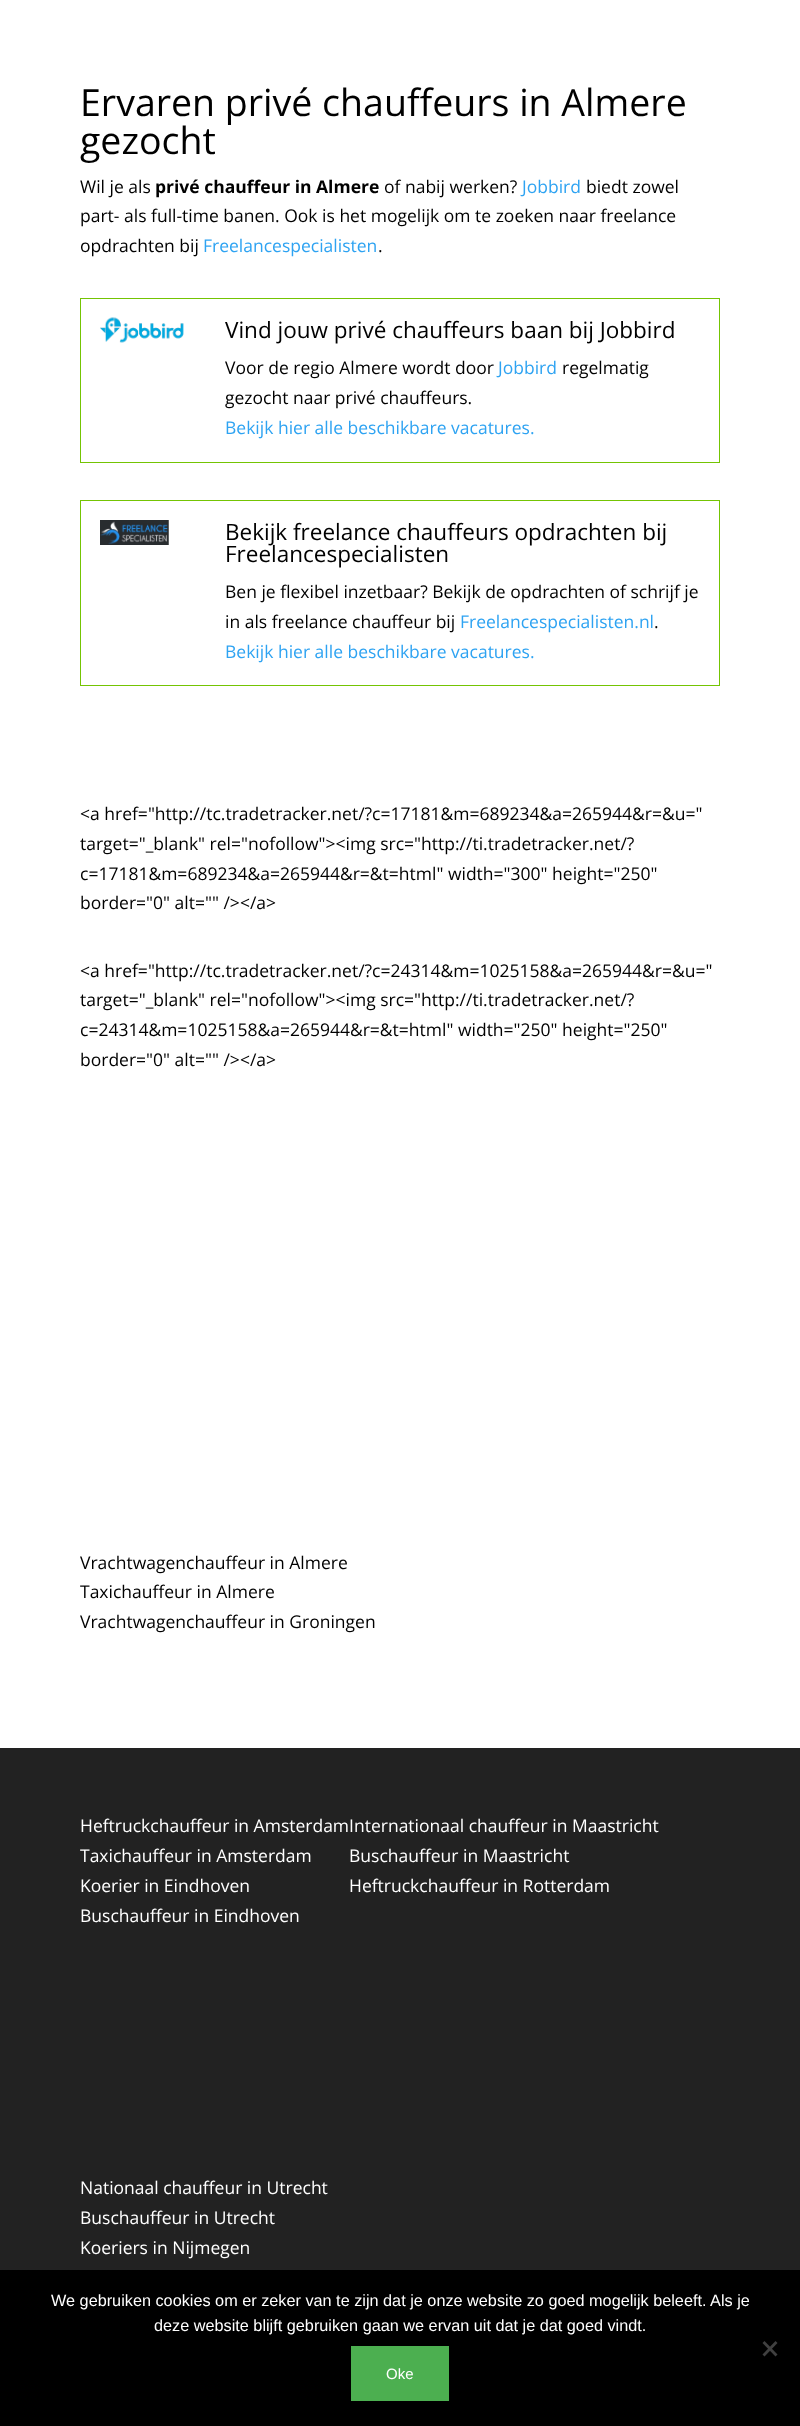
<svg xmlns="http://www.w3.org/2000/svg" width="800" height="2426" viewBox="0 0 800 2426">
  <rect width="100%" height="100%" fill="rgb(255,255,255)"/>
  <g font-family="Open Sans" font-size="37.5" fill="rgb(0,0,0)">
    <text>
      <tspan x="80" y="116">Ervaren privé chauffeurs in Almere</tspan>
      <tspan x="80" y="154">gezocht</tspan>
    </text>
  </g>
  <text x="80" y="193" font-family="Open Sans" font-size="17.5" fill="rgb(0,0,0)">Wil je als</text>
  <text x="155" y="193" font-family="Open Sans" font-size="17.5" font-weight="bold" fill="rgb(0,0,0)">privé chauffeur in Almere</text>
  <text x="384" y="193" font-family="Open Sans" font-size="17.5" fill="rgb(0,0,0)">of nabij werken?</text>
  <text x="522" y="193" font-family="Open Sans" font-size="17.5" fill="rgb(46,163,242)">Jobbird</text>
  <g font-family="Open Sans" font-size="17.5" fill="rgb(0,0,0)">
    <text x="586" y="193">biedt zowel</text>
    <text>
      <tspan x="80" y="222">part- als full-time banen. Ook is het mogelijk om te zoeken naar freelance</tspan>
      <tspan x="80" y="252">opdrachten bij</tspan>
    </text>
  </g>
  <text x="203" y="252" font-family="Open Sans" font-size="17.5" fill="rgb(46,163,242)">Freelancespecialisten</text>
  <text x="378" y="252" font-family="Open Sans" font-size="17.5" fill="rgb(0,0,0)">.</text>
  <rect x="80.5" y="298.5" width="639" height="164" fill="none" stroke="rgb(116,196,3)"/>
  <image x="100" y="317" width="84" height="26" href="pic1.png"/>
  <text x="225" y="338" font-family="Open Sans" font-size="22.5" fill="rgb(0,0,0)">Vind jouw privé chauffeurs baan bij Jobbird</text>
  <text x="225" y="374" font-family="Open Sans" font-size="17.5" fill="rgb(0,0,0)">Voor de regio Almere wordt door</text>
  <text x="498" y="374" font-family="Open Sans" font-size="17.5" fill="rgb(46,163,242)">Jobbird</text>
  <g font-family="Open Sans" font-size="17.5" fill="rgb(0,0,0)">
    <text x="562" y="374">regelmatig</text>
    <text x="225" y="404">gezocht naar privé chauffeurs.</text>
  </g>
  <text x="225" y="434" font-family="Open Sans" font-size="17.5" fill="rgb(46,163,242)">Bekijk hier alle beschikbare vacatures.</text>
  <rect x="80.5" y="500.5" width="639" height="185" fill="none" stroke="rgb(116,196,3)"/>
  <image x="100" y="520" width="69" height="25" href="pic2.png"/>
  <g font-family="Open Sans" font-size="22.5" fill="rgb(0,0,0)">
    <text>
      <tspan x="225" y="540">Bekijk freelance chauffeurs opdrachten bij</tspan>
      <tspan x="225" y="562">Freelancespecialisten</tspan>
    </text>
  </g>
  <g font-family="Open Sans" font-size="17.5" fill="rgb(0,0,0)">
    <text>
      <tspan x="225" y="598">Ben je flexibel inzetbaar? Bekijk de opdrachten of schrijf je</tspan>
      <tspan x="225" y="628">in als freelance chauffeur bij</tspan>
    </text>
  </g>
  <text x="460" y="628" font-family="Open Sans" font-size="17.5" fill="rgb(46,163,242)">Freelancespecialisten.nl</text>
  <text x="654" y="628" font-family="Open Sans" font-size="17.5" fill="rgb(0,0,0)">.</text>
  <text x="225" y="658" font-family="Open Sans" font-size="17.5" fill="rgb(46,163,242)">Bekijk hier alle beschikbare vacatures.</text>
  <g font-family="Open Sans" font-size="17.5" fill="rgb(0,0,0)">
    <text>
      <tspan x="80" y="820">&lt;a href="http://tc.tradetracker.net/?c=17181&amp;m=689234&amp;a=265944&amp;r=&amp;u="</tspan>
      <tspan x="80" y="850">target="_blank" rel="nofollow"&gt;&lt;img src="http://ti.tradetracker.net/?</tspan>
      <tspan x="80" y="880">c=17181&amp;m=689234&amp;a=265944&amp;r=&amp;t=html" width="300" height="250"</tspan>
      <tspan x="80" y="909">border="0" alt="" /&gt;&lt;/a&gt;</tspan>
    </text>
    <text>
      <tspan x="80" y="977">&lt;a href="http://tc.tradetracker.net/?c=24314&amp;m=1025158&amp;a=265944&amp;r=&amp;u="</tspan>
      <tspan x="80" y="1006">target="_blank" rel="nofollow"&gt;&lt;img src="http://ti.tradetracker.net/?</tspan>
      <tspan x="80" y="1036">c=24314&amp;m=1025158&amp;a=265944&amp;r=&amp;t=html" width="250" height="250"</tspan>
      <tspan x="80" y="1066">border="0" alt="" /&gt;&lt;/a&gt;</tspan>
    </text>
    <text>
      <tspan x="80" y="1569">Vrachtwagenchauffeur in Almere</tspan>
      <tspan x="80" y="1598">Taxichauffeur in Almere</tspan>
      <tspan x="80" y="1628">Vrachtwagenchauffeur in Groningen</tspan>
    </text>
  </g>
  <rect x="0" y="1748" width="800" height="522" fill="rgb(34,34,34)"/>
  <g font-family="Open Sans" font-size="17.5" fill="rgb(255,255,255)">
    <text>
      <tspan x="80" y="1832">Heftruckchauffeur in AmsterdamInternationaal chauffeur in Maastricht</tspan>
      <tspan x="80" y="1862">Taxichauffeur in Amsterdam</tspan>
      <tspan x="80" y="1892">Koerier in Eindhoven</tspan>
      <tspan x="80" y="1922">Buschauffeur in Eindhoven</tspan>
    </text>
    <text>
      <tspan x="349" y="1862">Buschauffeur in Maastricht</tspan>
      <tspan x="349" y="1892">Heftruckchauffeur in Rotterdam</tspan>
    </text>
    <text>
      <tspan x="80" y="2194">Nationaal chauffeur in Utrecht</tspan>
      <tspan x="80" y="2224">Buschauffeur in Utrecht</tspan>
      <tspan x="80" y="2254">Koeriers in Nijmegen</tspan>
    </text>
  </g>
  <rect x="0" y="2270" width="800" height="156" fill="rgb(0,0,0)"/>
  <g font-family="Liberation Sans" font-size="16.25" fill="rgb(255,255,255)">
    <text x="51" y="2306">We gebruiken cookies om er zeker van te zijn dat je onze website zo goed mogelijk beleeft. Als je</text>
    <text x="154" y="2331">deze website blijft gebruiken gaan we ervan uit dat je dat goed vindt.</text>
  </g>
  <path d="M775.5 2341L777.5 2343L764.5 2356.5L762.5 2354.5Z" fill="rgb(64,64,64)"/>
  <path d="M762.5 2343L764.5 2341L777.5 2354.5L775.5 2356.5Z" fill="rgb(64,64,64)"/>
  <rect x="351" y="2346" width="98" height="55" fill="rgb(76,175,80)"/>
  <text x="386" y="2379" font-family="Liberation Sans" font-size="15" fill="rgb(255,255,255)">Oke</text>
</svg>
